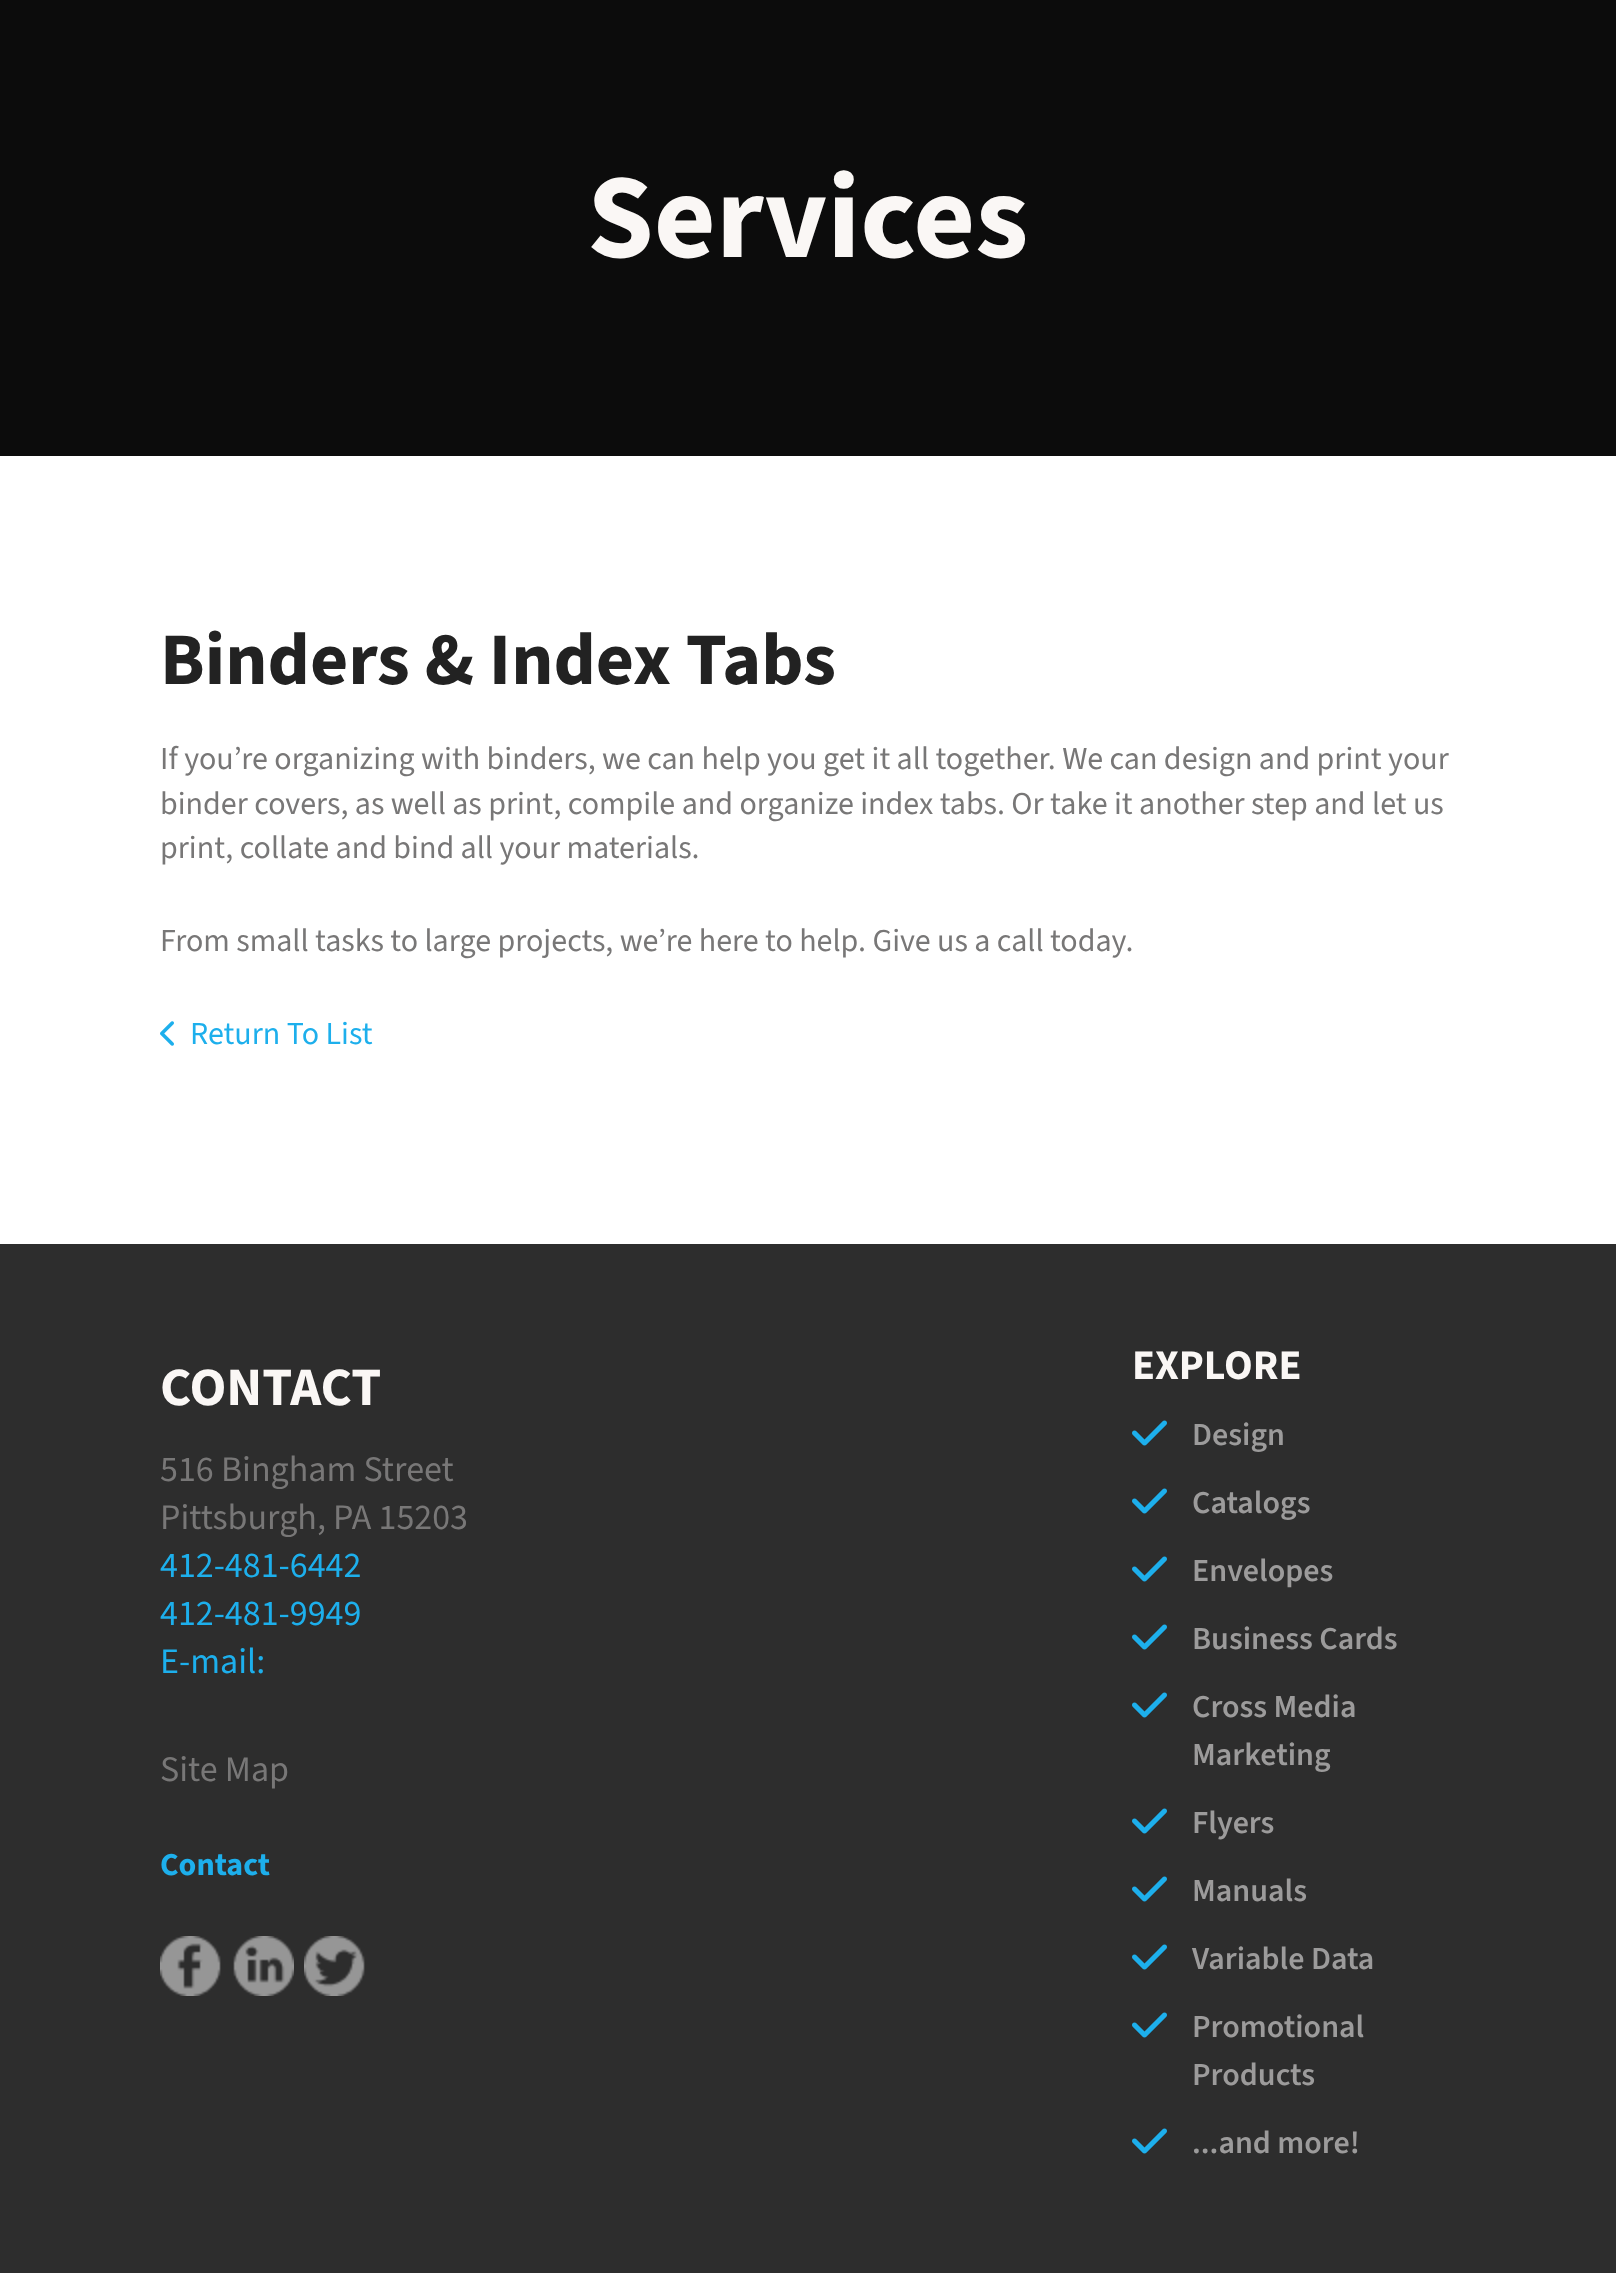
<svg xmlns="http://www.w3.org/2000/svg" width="1616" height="2273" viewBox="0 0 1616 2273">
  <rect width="100%" height="100%" fill="rgb(255,255,255)"/>
  <rect x="0" y="0" width="1616" height="456" fill="rgb(12,12,12)"/>
  <text x="587" y="257" font-family="'Source Sans 3'" font-size="120" font-weight="bold" fill="rgb(250,247,245)">Services</text>
  <text x="160" y="684" font-family="'Source Sans 3'" font-size="74" font-weight="bold" fill="rgb(34,34,34)">Binders &amp; Index Tabs</text>
  <g font-family="'Source Sans 3'" font-size="32" fill="rgb(120,119,119)">
    <text>
      <tspan x="160" y="769">If you’re organizing with binders, we can help you get it all together. We can design and print your</tspan>
      <tspan x="160" y="814">binder covers, as well as print, compile and organize index tabs. Or take it another step and let us</tspan>
      <tspan x="160" y="858">print, collate and bind all your materials.</tspan>
    </text>
    <text x="160" y="951">From small tasks to large projects, we’re here to help. Give us a call today.</text>
  </g>
  <image x="160" y="1021" width="14" height="25" href="pic1.png"/>
  <text x="190" y="1044" font-family="'Source Sans 3'" font-size="32" fill="rgb(29,175,236)">Return To List</text>
  <rect x="0" y="1244" width="1616" height="1029" fill="rgb(45,45,45)"/>
  <text x="160" y="1405" font-family="'Source Sans 3'" font-size="54" font-weight="bold" fill="rgb(250,247,245)">CONTACT</text>
  <g font-family="'Source Sans 3'" font-size="36" fill="rgb(120,119,119)">
    <text>
      <tspan x="160" y="1481">516 Bingham Street</tspan>
      <tspan x="160" y="1529">Pittsburgh, PA 15203</tspan>
    </text>
  </g>
  <g font-family="'Source Sans 3'" font-size="36" fill="rgb(29,175,236)">
    <text>
      <tspan x="160" y="1577">412-481-6442</tspan>
      <tspan x="160" y="1625">412-481-9949</tspan>
      <tspan x="160" y="1673">E-mail:</tspan>
    </text>
  </g>
  <text x="160" y="1781" font-family="'Source Sans 3'" font-size="36" fill="rgb(120,119,119)">Site Map</text>
  <text x="160" y="1875" font-family="'Source Sans 3'" font-size="32" font-weight="bold" fill="rgb(29,175,236)">Contact</text>
  <image x="160" y="1936" width="61" height="60" href="pic2.png"/>
  <image x="233" y="1936" width="61" height="60" href="pic3.png"/>
  <image x="304" y="1936" width="61" height="60" href="pic4.png"/>
  <text x="1132" y="1379" font-family="'Source Sans 3'" font-size="42" font-weight="bold" fill="rgb(250,247,245)">EXPLORE</text>
  <image x="1132" y="1420" width="35" height="26" href="pic5.png"/>
  <text x="1192" y="1445" font-family="'Source Sans 3'" font-size="32" font-weight="600" fill="rgb(156,155,155)">Design</text>
  <image x="1132" y="1488" width="35" height="26" href="pic5.png"/>
  <text x="1192" y="1513" font-family="'Source Sans 3'" font-size="32" font-weight="600" fill="rgb(156,155,155)">Catalogs</text>
  <image x="1132" y="1556" width="35" height="26" href="pic5.png"/>
  <text x="1192" y="1581" font-family="'Source Sans 3'" font-size="32" font-weight="600" fill="rgb(156,155,155)">Envelopes</text>
  <image x="1132" y="1624" width="35" height="26" href="pic5.png"/>
  <text x="1192" y="1649" font-family="'Source Sans 3'" font-size="32" font-weight="600" fill="rgb(156,155,155)">Business Cards</text>
  <image x="1132" y="1692" width="35" height="26" href="pic5.png"/>
  <g font-family="'Source Sans 3'" font-size="32" font-weight="600" fill="rgb(156,155,155)">
    <text>
      <tspan x="1192" y="1717">Cross Media</tspan>
      <tspan x="1192" y="1765">Marketing</tspan>
    </text>
  </g>
  <image x="1132" y="1808" width="35" height="26" href="pic5.png"/>
  <text x="1192" y="1833" font-family="'Source Sans 3'" font-size="32" font-weight="600" fill="rgb(156,155,155)">Flyers</text>
  <image x="1132" y="1876" width="35" height="26" href="pic5.png"/>
  <text x="1192" y="1901" font-family="'Source Sans 3'" font-size="32" font-weight="600" fill="rgb(156,155,155)">Manuals</text>
  <image x="1132" y="1944" width="35" height="26" href="pic5.png"/>
  <text x="1192" y="1969" font-family="'Source Sans 3'" font-size="32" font-weight="600" fill="rgb(156,155,155)">Variable Data</text>
  <image x="1132" y="2012" width="35" height="26" href="pic5.png"/>
  <g font-family="'Source Sans 3'" font-size="32" font-weight="600" fill="rgb(156,155,155)">
    <text>
      <tspan x="1192" y="2037">Promotional</tspan>
      <tspan x="1192" y="2085">Products</tspan>
    </text>
  </g>
  <image x="1132" y="2128" width="35" height="26" href="pic5.png"/>
  <text x="1192" y="2153" font-family="'Source Sans 3'" font-size="32" font-weight="600" fill="rgb(156,155,155)">...and more!</text>
</svg>
